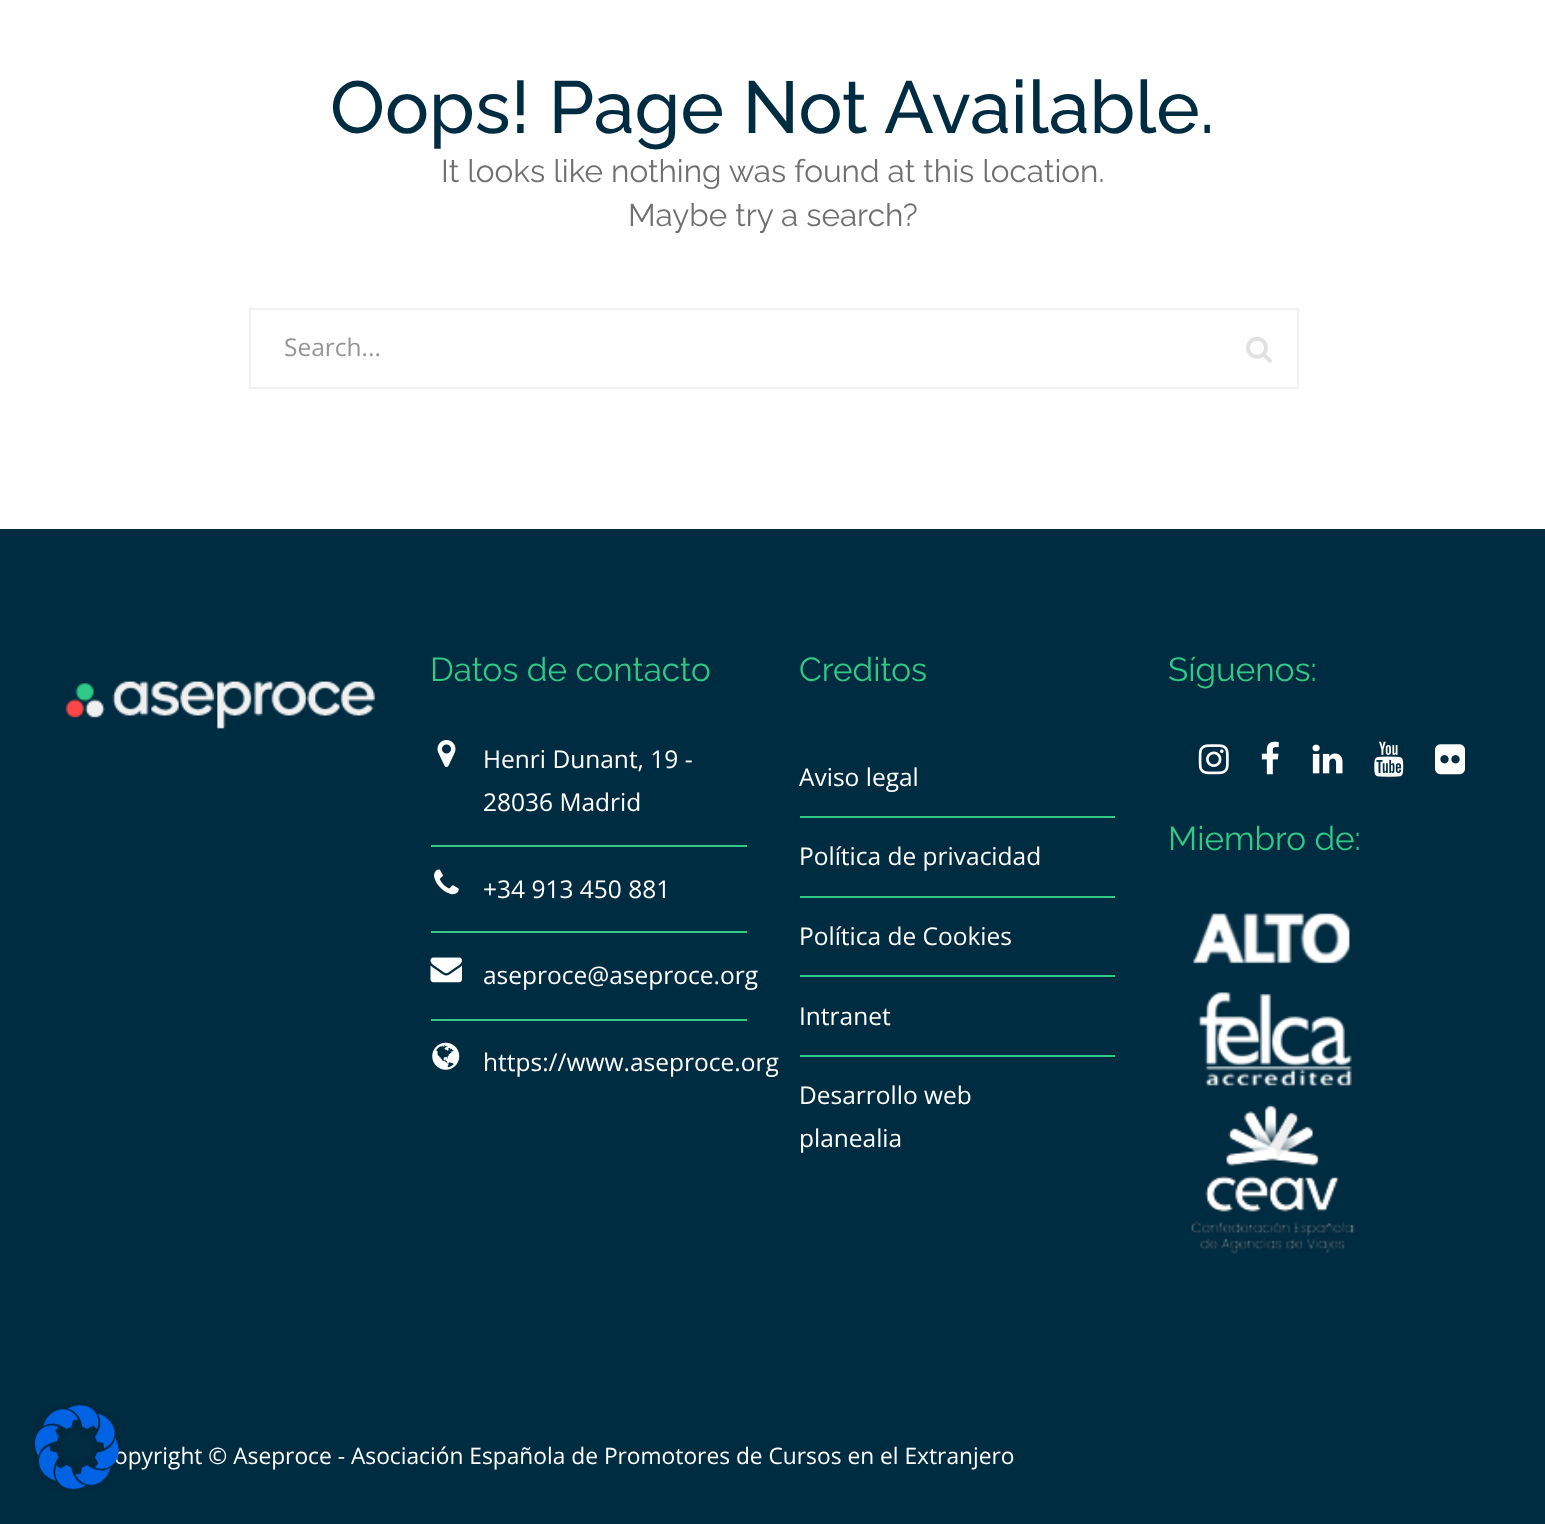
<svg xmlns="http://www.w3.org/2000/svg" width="1545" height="1524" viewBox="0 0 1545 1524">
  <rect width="100%" height="100%" fill="rgb(255,255,255)"/>
  <text x="330" y="133" font-family="Raleway" font-size="73.5" font-weight="100" fill="rgb(0,44,66)">Oops! Page Not Available.</text>
  <g font-family="Raleway" font-size="31.5" fill="rgb(112,112,112)">
    <text x="441" y="182">It looks like nothing was found at this location.</text>
    <text x="628" y="226">Maybe try a search?</text>
  </g>
  <rect x="250" y="309" width="1048" height="79" fill="none" stroke="rgb(241,241,241)" stroke-width="2"/>
  <text x="284" y="356" font-family="Open Sans" font-size="24.5" fill="rgb(149,149,149)">Search...</text>
  <image x="1246" y="336" width="26" height="27" href="pic1.png"/>
  <rect x="0" y="529" width="1545" height="995" fill="rgb(0,44,66)"/>
  <image x="65" y="681" width="311" height="48" href="pic2.png"/>
  <text x="430" y="681" font-family="Raleway" font-size="33.25" fill="rgb(48,201,134)">Datos de contacto</text>
  <rect x="431" y="845" width="316" height="2" fill="rgb(48,201,134)"/>
  <image x="437" y="740" width="19" height="27" href="pic3.png"/>
  <g font-family="Open Sans" font-size="24.5" fill="rgb(255,255,255)">
    <text>
      <tspan x="483" y="768">Henri Dunant, 19 -</tspan>
      <tspan x="483" y="811">28036 Madrid</tspan>
    </text>
  </g>
  <rect x="431" y="931" width="316" height="2" fill="rgb(48,201,134)"/>
  <image x="434" y="869" width="25" height="26" href="pic4.png"/>
  <text x="483" y="898" font-family="Open Sans" font-size="24.5" fill="rgb(255,255,255)">+34 913 450 881</text>
  <rect x="431" y="1019" width="316" height="2" fill="rgb(48,201,134)"/>
  <image x="430" y="957" width="32" height="26" href="pic5.png"/>
  <text x="483" y="984" font-family="Open Sans" font-size="24.5" fill="rgb(255,255,255)">aseproce@aseproce.org</text>
  <image x="432" y="1042" width="28" height="28" href="pic6.png"/>
  <text x="483" y="1071" font-family="Open Sans" font-size="24.5" fill="rgb(255,255,255)">https://www.aseproce.org</text>
  <text x="799" y="681" font-family="Raleway" font-size="33.25" fill="rgb(48,201,134)">Creditos</text>
  <rect x="800" y="816" width="315" height="2" fill="rgb(48,201,134)"/>
  <text x="799" y="786" font-family="Open Sans" font-size="24.5" fill="rgb(255,255,255)">Aviso legal</text>
  <rect x="800" y="896" width="315" height="2" fill="rgb(48,201,134)"/>
  <text x="799" y="865" font-family="Open Sans" font-size="24.5" fill="rgb(255,255,255)">Política de privacidad</text>
  <rect x="800" y="975" width="315" height="2" fill="rgb(48,201,134)"/>
  <text x="799" y="945" font-family="Open Sans" font-size="24.5" fill="rgb(255,255,255)">Política de Cookies</text>
  <rect x="800" y="1055" width="315" height="2" fill="rgb(48,201,134)"/>
  <g font-family="Open Sans" font-size="24.5" fill="rgb(255,255,255)">
    <text x="799" y="1025">Intranet</text>
    <text>
      <tspan x="799" y="1104">Desarrollo web</tspan>
      <tspan x="799" y="1147">planealia</tspan>
    </text>
  </g>
  <text x="1168" y="681" font-family="Raleway" font-size="33.25" fill="rgb(48,201,134)">Síguenos:</text>
  <image x="1198" y="744" width="31" height="31" href="pic7.png"/>
  <image x="1261" y="741" width="18" height="34" href="pic8.png"/>
  <image x="1312" y="744" width="31" height="30" href="pic9.png"/>
  <image x="1374" y="741" width="30" height="36" href="pic10.png"/>
  <image x="1435" y="744" width="30" height="31" href="pic11.png"/>
  <text x="1168" y="850" font-family="Raleway" font-size="33.25" fill="rgb(48,201,134)">Miembro de:</text>
  <image x="1193" y="913" width="157" height="51" href="pic12.png"/>
  <image x="1198" y="992" width="154" height="94" href="pic13.png"/>
  <image x="1191" y="1104" width="164" height="150" href="pic14.png"/>
  <text x="114" y="1464" font-family="Open Sans" font-size="22.75" fill="rgb(255,255,255)">opyright © Aseproce - Asociación Española de Promotores de Cursos en el Extranjero</text>
  <image x="33" y="1403" width="93" height="88" href="pic15.png"/>
</svg>
